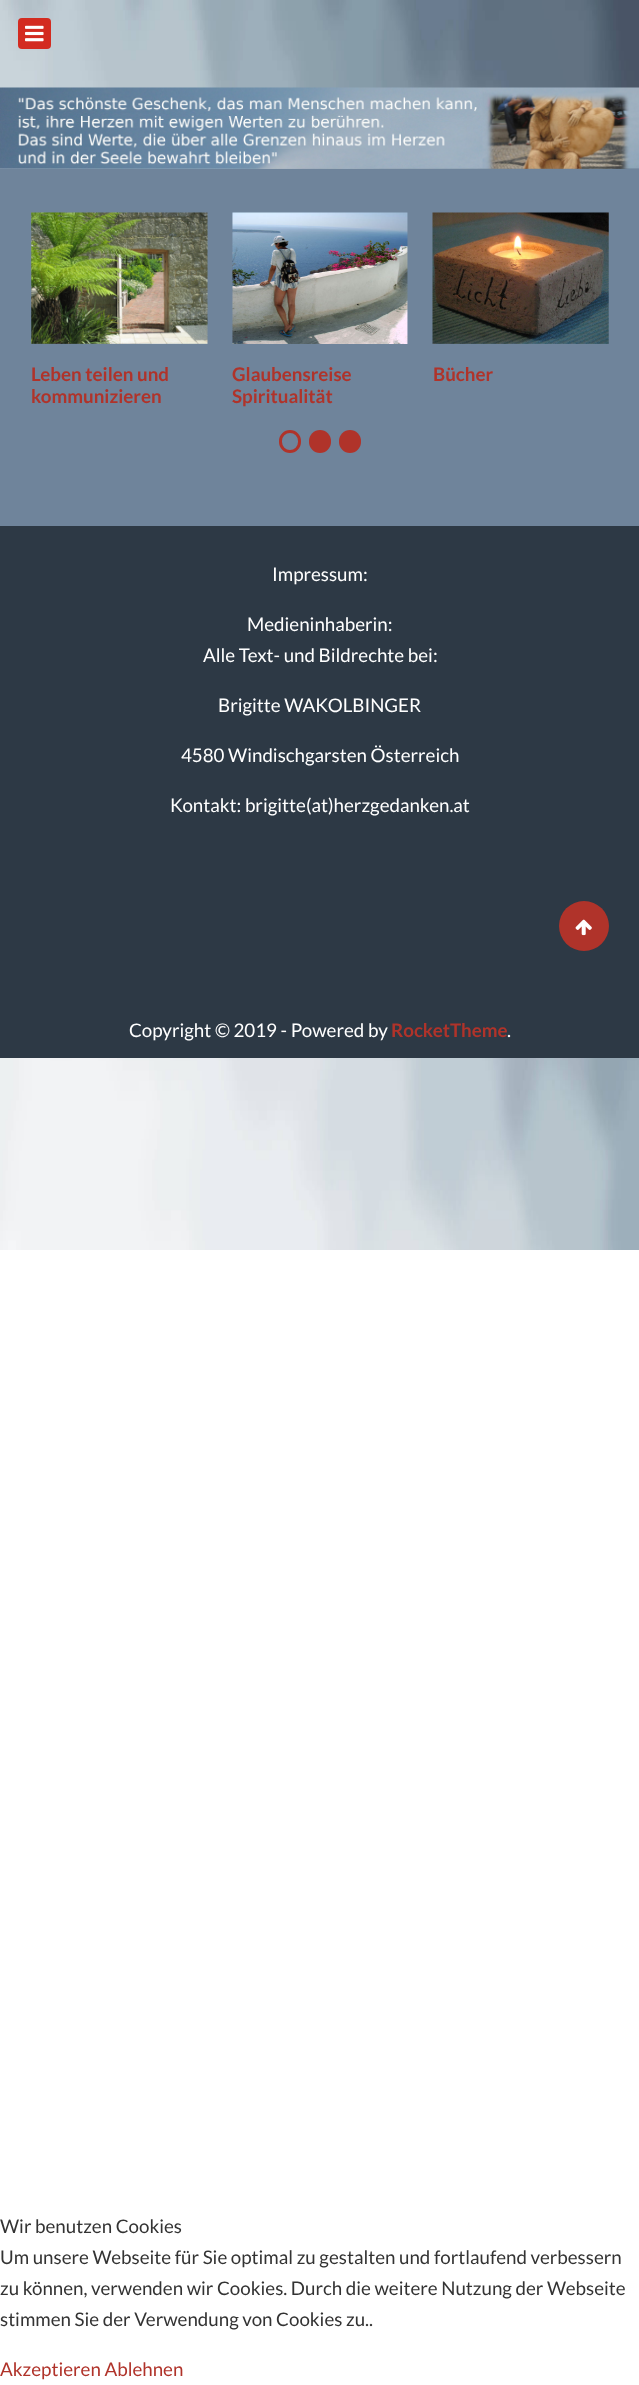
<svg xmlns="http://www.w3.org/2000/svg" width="639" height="2385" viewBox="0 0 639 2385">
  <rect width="100%" height="100%" fill="rgb(255,255,255)"/>
  <image x="0" y="0" width="639" height="1250" href="pic1.png"/>
  <rect x="18" y="18" width="33" height="31" rx="4" fill="rgb(211,43,32)"/>
  <image x="25" y="25" width="19" height="17" href="pic2.png"/>
  <image x="0" y="87" width="639" height="82" href="pic3.png"/>
  <rect x="0" y="169" width="639" height="357" fill="rgb(111,132,155)"/>
  <image x="31" y="212" width="177" height="132" href="pic4.png"/>
  <g font-family="Lato" font-size="18.75" font-weight="bold" fill="rgb(176,51,42)">
    <text>
      <tspan x="31" y="381">Leben teilen und</tspan>
      <tspan x="31" y="403">kommunizieren</tspan>
    </text>
  </g>
  <image x="232" y="212" width="176" height="132" href="pic5.png"/>
  <g font-family="Lato" font-size="18.75" font-weight="bold" fill="rgb(176,51,42)">
    <text>
      <tspan x="232" y="381">Glaubensreise</tspan>
      <tspan x="232" y="403">Spiritualität</tspan>
    </text>
  </g>
  <image x="432" y="212" width="177" height="132" href="pic6.png"/>
  <text x="433" y="381" font-family="Lato" font-size="18.75" font-weight="bold" fill="rgb(176,51,42)">Bücher</text>
  <rect x="280.5" y="431.5" width="19" height="20" rx="9.5" fill="none" stroke="rgb(176,51,42)" stroke-width="3"/>
  <rect x="309" y="430" width="22" height="23" rx="11" fill="rgb(176,51,42)"/>
  <rect x="339" y="430" width="22" height="23" rx="11" fill="rgb(176,51,42)"/>
  <rect x="0" y="526" width="639" height="532" fill="rgb(45,57,69)"/>
  <g font-family="Lato" font-size="18.75" fill="rgb(255,255,255)">
    <text x="272" y="581">Impressum:</text>
    <text x="247" y="631">Medieninhaberin:</text>
    <text x="203" y="662">Alle Text- und Bildrechte bei:</text>
    <text x="218" y="712">Brigitte WAKOLBINGER</text>
    <text x="181" y="762">4580 Windischgarsten Österreich</text>
    <text x="170" y="812">Kontakt: brigitte(at)herzgedanken.at</text>
  </g>
  <circle cx="584" cy="926" r="25" fill="rgb(176,51,42)"/>
  <image x="575" y="919" width="17" height="17" href="pic7.png"/>
  <text x="129" y="1037" font-family="Lato" font-size="18.75" fill="rgb(255,255,255)">Copyright © 2019 - Powered by</text>
  <text x="391" y="1037" font-family="Lato" font-size="18.75" font-weight="bold" fill="rgb(176,51,42)">RocketTheme</text>
  <text x="507" y="1037" font-family="Lato" font-size="18.75" fill="rgb(255,255,255)">.</text>
  <g font-family="Lato" font-size="18.75" fill="rgb(51,51,51)">
    <text>
      <tspan x="0" y="2233">Wir benutzen Cookies</tspan>
      <tspan x="0" y="2264">Um unsere Webseite für Sie optimal zu gestalten und fortlaufend verbessern</tspan>
      <tspan x="0" y="2295">zu können, verwenden wir Cookies. Durch die weitere Nutzung der Webseite</tspan>
      <tspan x="0" y="2326">stimmen Sie der Verwendung von Cookies zu..</tspan>
    </text>
  </g>
  <text x="0" y="2376" font-family="Lato" font-size="18.75" fill="rgb(176,51,42)">Akzeptieren Ablehnen</text>
</svg>
